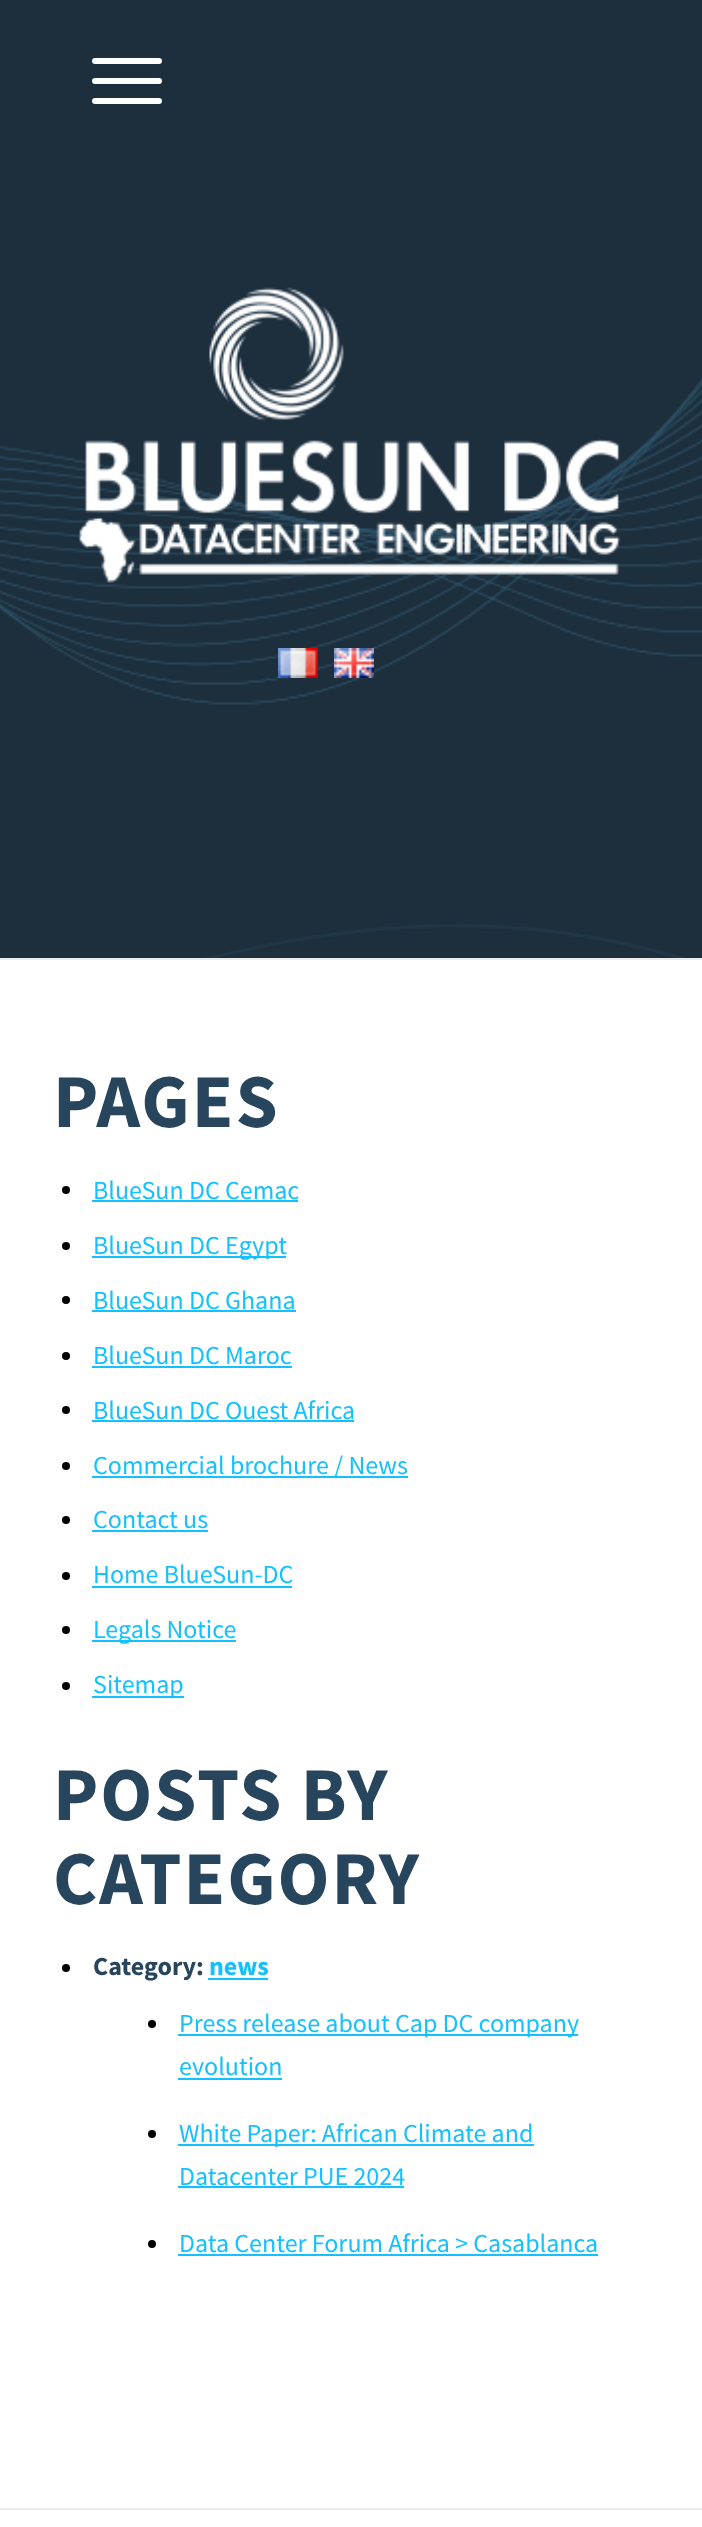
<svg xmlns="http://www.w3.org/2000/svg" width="702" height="2527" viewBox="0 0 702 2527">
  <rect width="100%" height="100%" fill="rgb(29,47,61)"/>
  <rect x="92" y="78" width="70" height="6" rx="3" fill="rgb(255,255,255)"/>
  <rect x="92" y="58" width="70" height="6" rx="3" fill="rgb(255,255,255)"/>
  <rect x="92" y="98" width="70" height="6" rx="3" fill="rgb(255,255,255)"/>
  <image x="0" y="378" width="702" height="580" href="pic1.png"/>
  <image x="77" y="287" width="544" height="296" href="pic2.png"/>
  <image x="278" y="648" width="40" height="30" href="pic3.png"/>
  <image x="334" y="648" width="40" height="30" href="pic4.png"/>
  <rect x="0" y="960" width="702" height="1548" fill="rgb(255,255,255)"/>
  <rect x="0" y="958" width="702" height="2" fill="rgb(235,235,235)"/>
  <text x="53" y="1127" font-family="Source Sans Pro" font-size="76" font-weight="bold" letter-spacing="2" fill="rgb(39,69,93)">PAGES</text>
  <circle cx="66" cy="1190" r="4" fill="rgb(0,0,0)"/>
  <text x="93" y="1199" font-family="Source Sans Pro" font-size="26" fill="rgb(20,192,255)">BlueSun DC Cemac</text>
  <rect x="92" y="1200" width="206" height="2" fill="rgb(20,192,255)"/>
  <circle cx="66" cy="1246" r="4" fill="rgb(0,0,0)"/>
  <rect x="92" y="1256" width="194" height="2" fill="rgb(20,192,255)"/>
  <text x="93" y="1254" font-family="Source Sans Pro" font-size="26" fill="rgb(20,192,255)">BlueSun DC Egypt</text>
  <circle cx="66" cy="1300" r="4" fill="rgb(0,0,0)"/>
  <text x="93" y="1309" font-family="Source Sans Pro" font-size="26" fill="rgb(20,192,255)">BlueSun DC Ghana</text>
  <rect x="92" y="1310" width="204" height="2" fill="rgb(20,192,255)"/>
  <circle cx="66" cy="1356" r="4" fill="rgb(0,0,0)"/>
  <text x="93" y="1364" font-family="Source Sans Pro" font-size="26" fill="rgb(20,192,255)">BlueSun DC Maroc</text>
  <rect x="92" y="1366" width="200" height="2" fill="rgb(20,192,255)"/>
  <circle cx="66" cy="1410" r="4" fill="rgb(0,0,0)"/>
  <text x="93" y="1419" font-family="Source Sans Pro" font-size="26" fill="rgb(20,192,255)">BlueSun DC Ouest Africa</text>
  <rect x="92" y="1420" width="262" height="2" fill="rgb(20,192,255)"/>
  <circle cx="66" cy="1466" r="4" fill="rgb(0,0,0)"/>
  <rect x="92" y="1476" width="316" height="2" fill="rgb(20,192,255)"/>
  <text x="93" y="1474" font-family="Source Sans Pro" font-size="26" fill="rgb(20,192,255)">Commercial brochure / News</text>
  <circle cx="66" cy="1520" r="4" fill="rgb(0,0,0)"/>
  <text x="93" y="1528" font-family="Source Sans Pro" font-size="26" fill="rgb(20,192,255)">Contact us</text>
  <rect x="92" y="1530" width="116" height="2" fill="rgb(20,192,255)"/>
  <circle cx="66" cy="1576" r="4" fill="rgb(0,0,0)"/>
  <text x="93" y="1583" font-family="Source Sans Pro" font-size="26" fill="rgb(20,192,255)">Home BlueSun-DC</text>
  <rect x="92" y="1586" width="200" height="2" fill="rgb(20,192,255)"/>
  <circle cx="66" cy="1630" r="4" fill="rgb(0,0,0)"/>
  <rect x="92" y="1640" width="144" height="2" fill="rgb(20,192,255)"/>
  <text x="93" y="1638" font-family="Source Sans Pro" font-size="26" fill="rgb(20,192,255)">Legals Notice</text>
  <circle cx="66" cy="1686" r="4" fill="rgb(0,0,0)"/>
  <rect x="92" y="1696" width="92" height="2" fill="rgb(20,192,255)"/>
  <text x="93" y="1693" font-family="Source Sans Pro" font-size="26" fill="rgb(20,192,255)">Sitemap</text>
  <g font-family="Source Sans Pro" font-size="76" font-weight="bold" letter-spacing="2" fill="rgb(39,69,93)">
    <text>
      <tspan x="53" y="1820">POSTS BY</tspan>
      <tspan x="53" y="1904">CATEGORY</tspan>
    </text>
  </g>
  <circle cx="66" cy="1968" r="4" fill="rgb(0,0,0)"/>
  <text x="93" y="1975" font-family="Source Sans Pro" font-size="26" font-weight="bold" fill="rgb(39,69,93)">Category:</text>
  <text x="209" y="1975" font-family="Source Sans Pro" font-size="26" font-weight="bold" fill="rgb(20,192,255)">news</text>
  <rect x="208" y="1978" width="60" height="2" fill="rgb(20,192,255)"/>
  <circle cx="152" cy="2024" r="4" fill="rgb(0,0,0)"/>
  <rect x="178" y="2034" width="400" height="2" fill="rgb(20,192,255)"/>
  <g font-family="Source Sans Pro" font-size="26" fill="rgb(20,192,255)">
    <text>
      <tspan x="179" y="2032">Press release about Cap DC company</tspan>
      <tspan x="179" y="2075">evolution</tspan>
    </text>
  </g>
  <rect x="178" y="2078" width="104" height="2" fill="rgb(20,192,255)"/>
  <circle cx="152" cy="2134" r="4" fill="rgb(0,0,0)"/>
  <rect x="178" y="2144" width="356" height="2" fill="rgb(20,192,255)"/>
  <g font-family="Source Sans Pro" font-size="26" fill="rgb(20,192,255)">
    <text>
      <tspan x="179" y="2142">White Paper: African Climate and</tspan>
      <tspan x="179" y="2185">Datacenter PUE 2024</tspan>
    </text>
  </g>
  <rect x="178" y="2186" width="226" height="2" fill="rgb(20,192,255)"/>
  <circle cx="152" cy="2244" r="4" fill="rgb(0,0,0)"/>
  <text x="179" y="2252" font-family="Source Sans Pro" font-size="26" fill="rgb(20,192,255)">Data Center Forum Africa &gt; Casablanca</text>
  <rect x="178" y="2254" width="420" height="2" fill="rgb(20,192,255)"/>
  <rect x="0" y="2510" width="702" height="17" fill="rgb(255,255,255)"/>
  <rect x="0" y="2508" width="702" height="2" fill="rgb(235,235,235)"/>
</svg>
